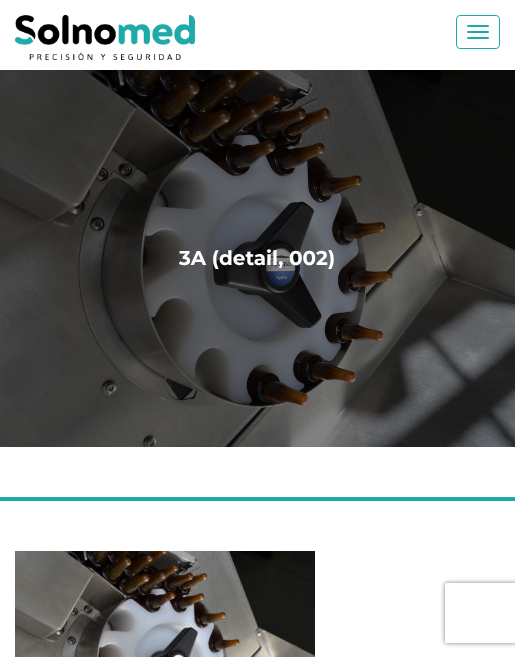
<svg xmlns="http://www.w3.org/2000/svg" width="515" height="657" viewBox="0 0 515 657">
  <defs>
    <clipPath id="clip1"><path d="M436 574H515V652H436ZM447 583H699C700 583 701 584 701 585V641C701 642 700 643 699 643H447C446 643 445 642 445 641V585C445 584 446 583 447 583Z" clip-rule="evenodd"/></clipPath>
  </defs>
  <rect width="100%" height="100%" fill="rgb(255,255,255)"/>
  <image x="15" y="15" width="180" height="45" href="pic1.png"/>
  <rect x="456.5" y="15.5" width="43" height="33" rx="3.5" fill="none" stroke="rgb(31,170,170)"/>
  <rect x="467" y="25" width="22" height="2" rx="1" fill="rgb(31,170,170)"/>
  <rect x="467" y="31" width="22" height="2" rx="1" fill="rgb(31,170,170)"/>
  <rect x="467" y="37" width="22" height="2" rx="1" fill="rgb(31,170,170)"/>
  <image x="0" y="70" width="515" height="377" href="pic2.png"/>
  <text x="179" y="265" font-family="Montserrat" font-size="20" font-weight="bold" fill="rgb(255,255,255)">3A (detail, 002)</text>
  <rect x="0" y="497" width="515" height="4" fill="rgb(31,170,170)"/>
  <image x="15" y="551" width="300" height="106" href="pic3.png"/>
  <g clip-path="url(#clip1)">
    <rect x="445" y="583" width="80" height="60" rx="2" fill="rgb(128,128,128)" filter="blur(2.5px)"/>
  </g>
</svg>
